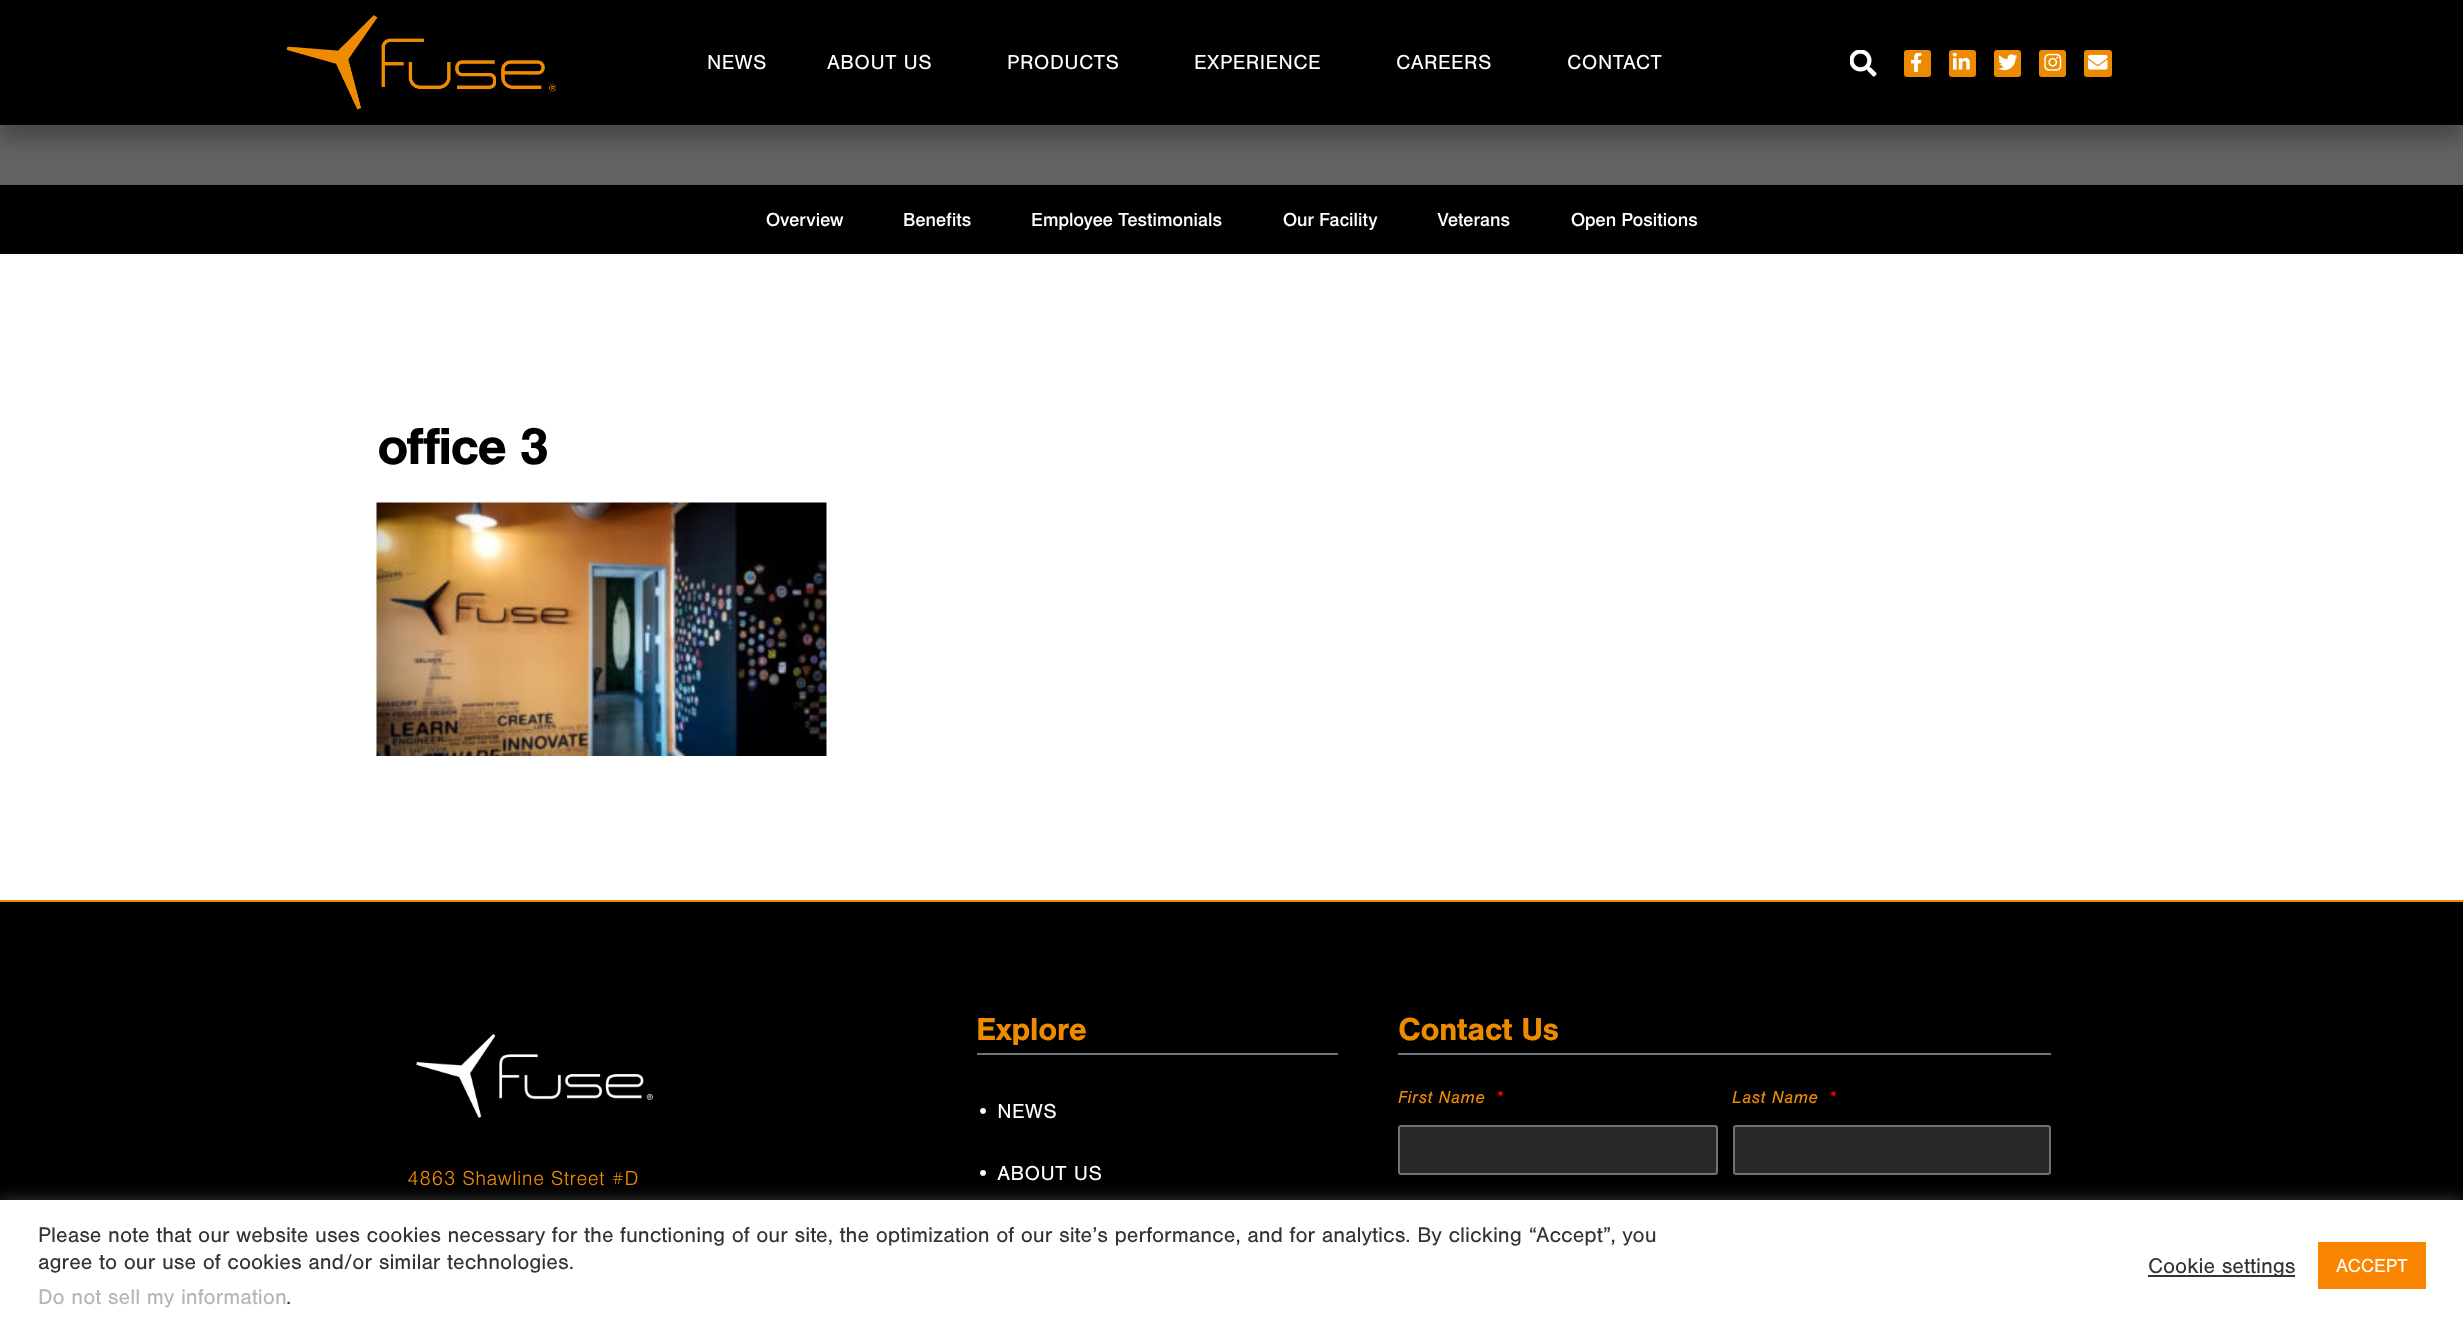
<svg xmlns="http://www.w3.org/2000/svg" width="2463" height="1330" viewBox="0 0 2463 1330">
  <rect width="100%" height="100%" fill="rgb(255,255,255)"/>
  <rect x="0" y="125" width="2463" height="60" fill="rgb(96,98,99)"/>
  <rect x="0" y="15" width="2463" height="125" fill="rgba(0,0,0,0.25)" filter="blur(9px)"/>
  <rect x="0" y="0" width="2463" height="125" fill="rgb(0,0,0)"/>
  <image x="286" y="15" width="271" height="95" href="pic1.png"/>
  <g font-family="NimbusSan" font-size="21" letter-spacing="0.45" fill="rgb(255,255,255)">
    <text x="707" y="69">NEWS</text>
    <text x="827" y="69">ABOUT US</text>
    <text x="1007" y="69">PRODUCTS</text>
    <text x="1194" y="69">EXPERIENCE</text>
    <text x="1396" y="69">CAREERS</text>
    <text x="1567" y="69">CONTACT</text>
  </g>
  <image x="1850" y="50" width="27" height="27" href="pic2.png"/>
  <rect x="1904" y="50" width="27" height="27" rx="3" fill="rgb(237,139,0)"/>
  <image x="1911" y="53" width="11" height="19" href="pic3.png"/>
  <rect x="1949" y="50" width="27" height="27" rx="3" fill="rgb(237,139,0)"/>
  <image x="1952" y="53" width="18" height="17" href="pic4.png"/>
  <rect x="1994" y="50" width="27" height="27" rx="3" fill="rgb(237,139,0)"/>
  <image x="1998" y="54" width="20" height="17" href="pic5.png"/>
  <rect x="2039" y="50" width="27" height="27" rx="3" fill="rgb(237,139,0)"/>
  <image x="2044" y="53" width="18" height="18" href="pic6.png"/>
  <rect x="2084" y="50" width="28" height="27" rx="3" fill="rgb(237,139,0)"/>
  <image x="2088" y="54" width="20" height="16" href="pic7.png"/>
  <rect x="0" y="185" width="2463" height="69" fill="rgb(0,0,0)"/>
  <g font-family="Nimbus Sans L" font-size="18" font-weight="500" fill="rgb(255,255,255)">
    <text x="766" y="226">Overview</text>
    <text x="903" y="226">Benefits</text>
    <text x="1031" y="226">Employee Testimonials</text>
    <text x="1283" y="226">Our Facility</text>
    <text x="1437" y="226">Veterans</text>
    <text x="1571" y="226">Open Positions</text>
  </g>
  <text x="377" y="464" font-family="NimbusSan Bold" font-size="54" font-weight="bold" letter-spacing="-2.25" fill="rgb(0,0,0)">office 3</text>
  <image x="376" y="502" width="451" height="254" href="pic8.png"/>
  <rect x="0" y="902" width="2463" height="298" fill="rgb(0,0,0)"/>
  <rect x="0" y="900" width="2463" height="2" fill="rgb(237,139,0)"/>
  <image x="416" y="1034" width="237" height="84" href="pic9.png"/>
  <text x="407" y="1185" font-family="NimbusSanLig" font-size="21" letter-spacing="0.45" fill="rgb(237,139,0)">4863 Shawline Street #D</text>
  <rect x="977" y="1053" width="361" height="2" fill="rgb(111,118,124)"/>
  <text x="976" y="1040" font-family="NimbusSan Bold" font-size="33" font-weight="bold" letter-spacing="-0.75" fill="rgb(237,139,0)">Explore</text>
  <g font-family="NimbusSan" font-size="21" letter-spacing="0.45" fill="rgb(255,255,255)">
    <text x="976" y="1118">• NEWS</text>
    <text x="976" y="1180">• ABOUT US</text>
  </g>
  <rect x="1398" y="1053" width="653" height="2" fill="rgb(111,118,124)"/>
  <text x="1398" y="1040" font-family="NimbusSan Bold" font-size="33" font-weight="bold" letter-spacing="-0.75" fill="rgb(237,139,0)">Contact Us</text>
  <text x="1398" y="1103" font-family="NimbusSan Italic" font-size="18" font-style="italic" letter-spacing="0.5" fill="rgb(237,139,0)">First Name</text>
  <text x="1496" y="1103" font-family="NimbusSan Italic" font-size="18" font-style="italic" letter-spacing="0.5" fill="rgb(255,0,0)">*</text>
  <rect x="1399" y="1126" width="318" height="48" rx="2" fill="rgb(40,40,40)" stroke="rgb(105,114,125)" stroke-width="2"/>
  <text x="1732" y="1103" font-family="NimbusSan Italic" font-size="18" font-style="italic" letter-spacing="0.5" fill="rgb(237,139,0)">Last Name</text>
  <text x="1829" y="1103" font-family="NimbusSan Italic" font-size="18" font-style="italic" letter-spacing="0.5" fill="rgb(255,0,0)">*</text>
  <rect x="1734" y="1126" width="316" height="48" rx="2" fill="rgb(40,40,40)" stroke="rgb(105,114,125)" stroke-width="2"/>
  <rect x="0" y="1199" width="2463" height="130" fill="rgba(172,171,171,0.3)" filter="blur(7.5px)"/>
  <rect x="0" y="1200" width="2463" height="130" fill="rgb(255,255,255)"/>
  <g font-family="NimbusSan" font-size="22" fill="rgb(51,51,51)">
    <text>
      <tspan x="38" y="1242">Please note that our website uses cookies necessary for the functioning of our site, the optimization of our site’s performance, and for analytics. By clicking “Accept”, you</tspan>
      <tspan x="38" y="1269">agree to our use of cookies and/or similar technologies.</tspan>
    </text>
  </g>
  <text x="38" y="1304" font-family="NimbusSan" font-size="22" fill="rgb(181,181,181)">Do not sell my information</text>
  <text x="286" y="1304" font-family="NimbusSan" font-size="22" fill="rgb(51,51,51)">.</text>
  <rect x="2148" y="1275" width="147" height="2" fill="rgb(51,51,51)"/>
  <text x="2148" y="1273" font-family="NimbusSan" font-size="22" fill="rgb(51,51,51)">Cookie settings</text>
  <rect x="2318" y="1242" width="108" height="47" fill="rgb(249,133,0)"/>
  <text x="2336" y="1272" font-family="NimbusSan" font-size="19.5" fill="rgb(255,255,255)">ACCEPT</text>
</svg>
